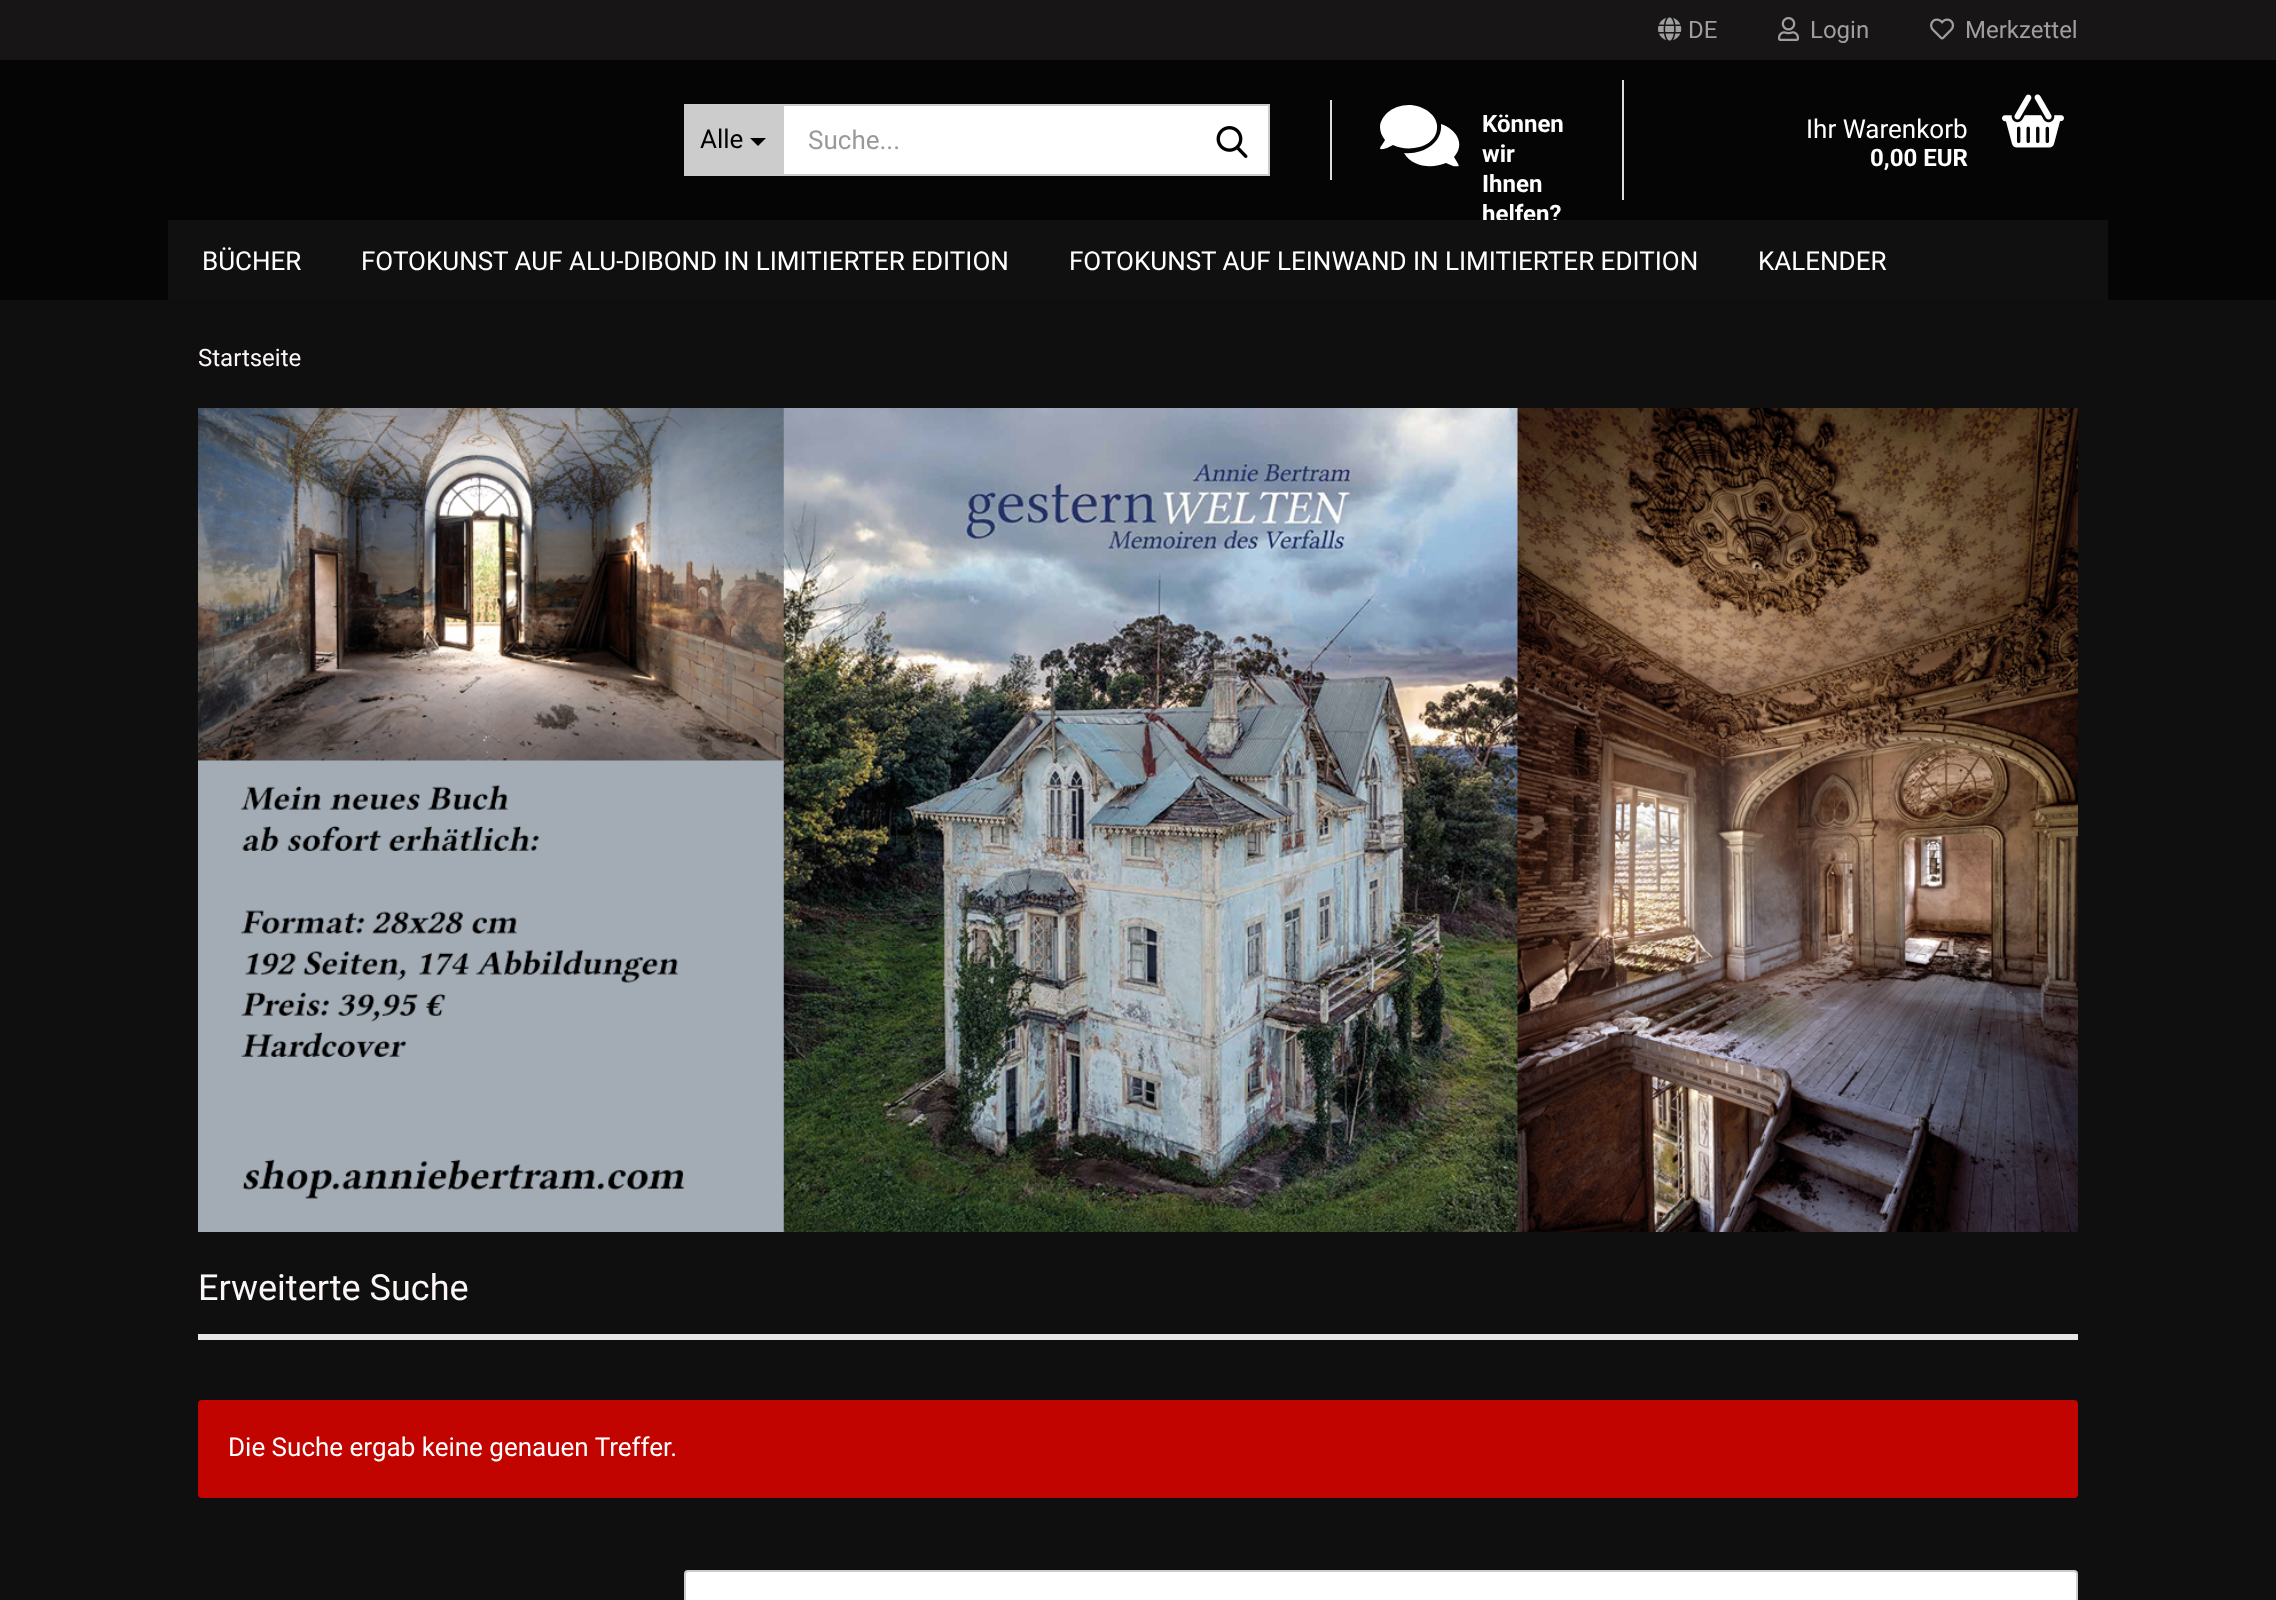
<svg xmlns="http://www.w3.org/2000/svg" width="2276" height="1600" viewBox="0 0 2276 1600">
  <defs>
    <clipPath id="clip1"><rect x="1300" y="60" width="322" height="160"/></clipPath>
  </defs>
  <rect width="100%" height="100%" fill="rgb(15,15,15)"/>
  <rect x="0" y="60" width="2276" height="240" fill="rgb(6,5,5)"/>
  <rect x="0" y="0" width="2276" height="60" fill="rgb(23,21,21)"/>
  <image x="1658" y="17" width="24" height="24" href="pic1.png"/>
  <text x="1688" y="38" font-family="Roboto" font-size="24" fill="rgb(159,159,159)">DE</text>
  <image x="1778" y="17" width="21" height="24" href="pic2.png"/>
  <text x="1810" y="38" font-family="Roboto" font-size="24" fill="rgb(159,159,159)">Login</text>
  <image x="1930" y="18" width="24" height="22" href="pic3.png"/>
  <text x="1965" y="38" font-family="Roboto" font-size="24" fill="rgb(159,159,159)">Merkzettel</text>
  <rect x="684" y="104" width="100" height="72" fill="rgb(204,204,204)"/>
  <text x="700" y="148" font-family="Roboto" font-size="26" fill="rgb(0,0,0)">Alle</text>
  <path d="M750 138H766L758 146Z" fill="rgb(0,0,0)"/>
  <rect x="784" y="106" width="484" height="68" fill="rgb(255,255,255)"/>
  <rect x="784" y="104" width="486" height="2" fill="rgb(204,204,204)"/>
  <rect x="1268" y="104" width="2" height="72" fill="rgb(204,204,204)"/>
  <rect x="784" y="174" width="486" height="2" fill="rgb(204,204,204)"/>
  <text x="808" y="149" font-family="Roboto" font-size="26" fill="rgb(153,153,153)">Suche...</text>
  <image x="1216" y="126" width="32" height="32" href="pic4.png"/>
  <rect x="1330" y="100" width="2" height="80" fill="rgb(221,221,221)"/>
  <path d="M1429 112C1433 115 1436 119 1437 125C1439 147 1409 153 1393 145L1387 148C1374 152 1383 145 1385 140C1382 136 1380 132 1380 127C1380 122 1383 117 1387 113C1398 103 1417 102 1429 112ZM1454 157L1457 162C1459 166 1461 167 1453 166L1446 163C1432 169 1412 167 1404 153C1421 155 1443 144 1441 124C1456 129 1466 144 1454 157Z" fill="rgb(255,255,255)"/>
  <g font-family="Roboto" font-size="24" font-weight="bold" fill="rgb(255,255,255)">
    <text>
      <tspan x="1482" y="132">Können</tspan>
      <tspan x="1482" y="162">wir</tspan>
      <tspan x="1482" y="192">Ihnen</tspan>
    </text>
  </g>
  <g clip-path="url(#clip1)">
    <text x="1482" y="222" font-family="Roboto" font-size="24" font-weight="bold" fill="rgb(255,255,255)">helfen?</text>
  </g>
  <rect x="1622" y="80" width="2" height="120" fill="rgb(221,221,221)"/>
  <text x="1806" y="138" font-family="Roboto" font-size="26" fill="rgb(255,255,255)">Ihr Warenkorb</text>
  <text x="1870" y="166" font-family="Roboto" font-size="24" font-weight="bold" fill="rgb(255,255,255)">0,00 EUR</text>
  <image x="2002" y="94" width="62" height="54" href="pic5.png"/>
  <rect x="168" y="220" width="1940" height="80" fill="rgb(17,16,16)"/>
  <g font-family="Roboto" font-size="26" fill="rgb(255,255,255)">
    <text x="202" y="270">BÜCHER</text>
    <text x="361" y="270">FOTOKUNST AUF ALU-DIBOND IN LIMITIERTER EDITION</text>
    <text x="1069" y="270">FOTOKUNST AUF LEINWAND IN LIMITIERTER EDITION</text>
    <text x="1758" y="270">KALENDER</text>
  </g>
  <text x="198" y="366" font-family="Roboto" font-size="24" fill="rgb(253,246,246)">Startseite</text>
  <image x="198" y="408" width="1880" height="824" href="pic6.png"/>
  <rect x="198" y="1334" width="1880" height="6" fill="rgb(231,231,231)"/>
  <text x="198" y="1300" font-family="Roboto" font-size="36" fill="rgb(253,246,246)">Erweiterte Suche</text>
  <rect x="198" y="1400" width="1880" height="98" rx="4" fill="rgb(194,4,0)"/>
  <text x="228" y="1456" font-family="Roboto" font-size="26" fill="rgb(255,255,255)">Die Suche ergab keine genauen Treffer.</text>
  <rect x="685" y="1571" width="1392" height="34" rx="3" fill="rgb(255,255,255)" stroke="rgb(204,204,204)" stroke-width="2"/>
</svg>
